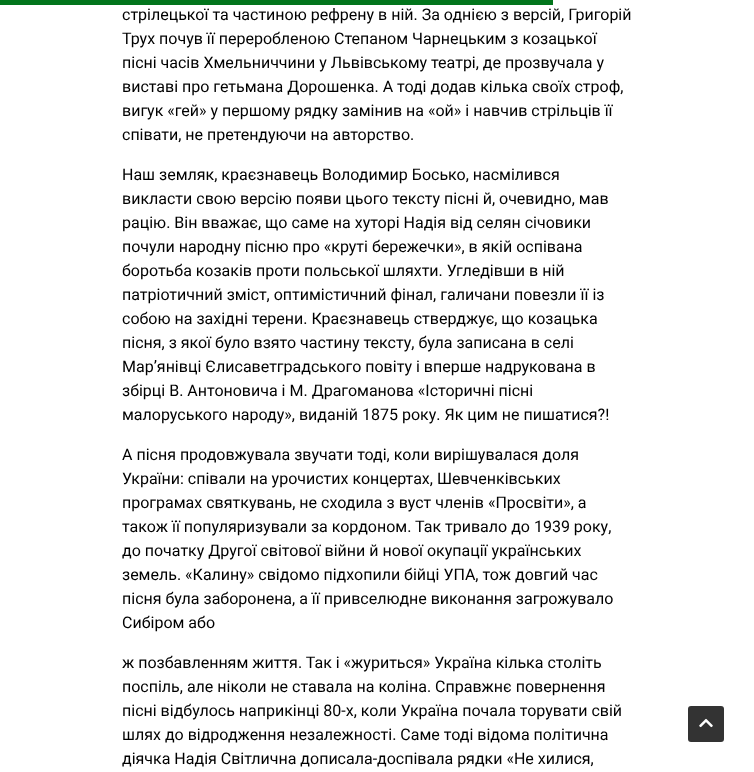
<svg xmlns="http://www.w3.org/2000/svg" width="754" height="772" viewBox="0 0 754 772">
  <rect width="100%" height="100%" fill="rgb(255,255,255)"/>
  <rect x="0" y="0" width="553" height="5" fill="rgb(2,117,28)"/>
  <g font-family="Roboto" font-size="16" fill="rgb(0,0,0)">
    <text>
      <tspan x="122" y="20">стрілецької та частиною рефрену в ній. За однією з версій, Григорій</tspan>
      <tspan x="122" y="44">Трух почув її переробленою Степаном Чарнецьким з козацької</tspan>
      <tspan x="122" y="68">пісні часів Хмельниччини у Львівському театрі, де прозвучала у</tspan>
      <tspan x="122" y="92">виставі про гетьмана Дорошенка. А тоді додав кілька своїх строф,</tspan>
      <tspan x="122" y="116">вигук «гей» у першому рядку замінив на «ой» і навчив стрільців її</tspan>
      <tspan x="122" y="140">співати, не претендуючи на авторство.</tspan>
    </text>
    <text>
      <tspan x="122" y="180">Наш земляк, краєзнавець Володимир Босько, насмілився</tspan>
      <tspan x="122" y="204">викласти свою версію появи цього тексту пісні й, очевидно, мав</tspan>
      <tspan x="122" y="228">рацію. Він вважає, що саме на хуторі Надія від селян січовики</tspan>
      <tspan x="122" y="252">почули народну пісню про «круті бережечки», в якій оспівана</tspan>
      <tspan x="122" y="276">боротьба козаків проти польської шляхти. Угледівши в ній</tspan>
      <tspan x="122" y="300">патріотичний зміст, оптимістичний фінал, галичани повезли її із</tspan>
      <tspan x="122" y="324">собою на західні терени. Краєзнавець стверджує, що козацька</tspan>
      <tspan x="122" y="348">пісня, з якої було взято частину тексту, була записана в селі</tspan>
      <tspan x="122" y="372">Мар’янівці Єлисаветградського повіту і вперше надрукована в</tspan>
      <tspan x="122" y="396">збірці В. Антоновича і М. Драгоманова «Історичні пісні</tspan>
      <tspan x="122" y="420">малоруського народу», виданій 1875 року. Як цим не пишатися?!</tspan>
    </text>
    <text>
      <tspan x="122" y="460">А пісня продовжувала звучати тоді, коли вирішувалася доля</tspan>
      <tspan x="122" y="484">України: співали на урочистих концертах, Шевченківських</tspan>
      <tspan x="122" y="508">програмах святкувань, не сходила з вуст членів «Просвіти», а</tspan>
      <tspan x="122" y="532">також її популяризували за кордоном. Так тривало до 1939 року,</tspan>
      <tspan x="122" y="556">до початку Другої світової війни й нової окупації українських</tspan>
      <tspan x="122" y="580">земель. «Калину» свідомо підхопили бійці УПА, тож довгий час</tspan>
      <tspan x="122" y="604">пісня була заборонена, а її привселюдне виконання загрожувало</tspan>
      <tspan x="122" y="628">Сибіром або</tspan>
    </text>
    <text>
      <tspan x="122" y="668">ж позбавленням життя. Так і «журиться» Україна кілька століть</tspan>
      <tspan x="122" y="692">поспіль, але ніколи не ставала на коліна. Справжнє повернення</tspan>
      <tspan x="122" y="716">пісні відбулось наприкінці 80-х, коли Україна почала торувати свій</tspan>
      <tspan x="122" y="740">шлях до відродження незалежності. Саме тоді відома політична</tspan>
      <tspan x="122" y="764">діячка Надія Світлична дописала-доспівала рядки «Не хилися,</tspan>
    </text>
  </g>
  <rect x="688" y="706" width="36" height="36" rx="3" fill="rgb(51,51,51)"/>
  <image x="699" y="718" width="14" height="10" href="pic1.png"/>
</svg>
